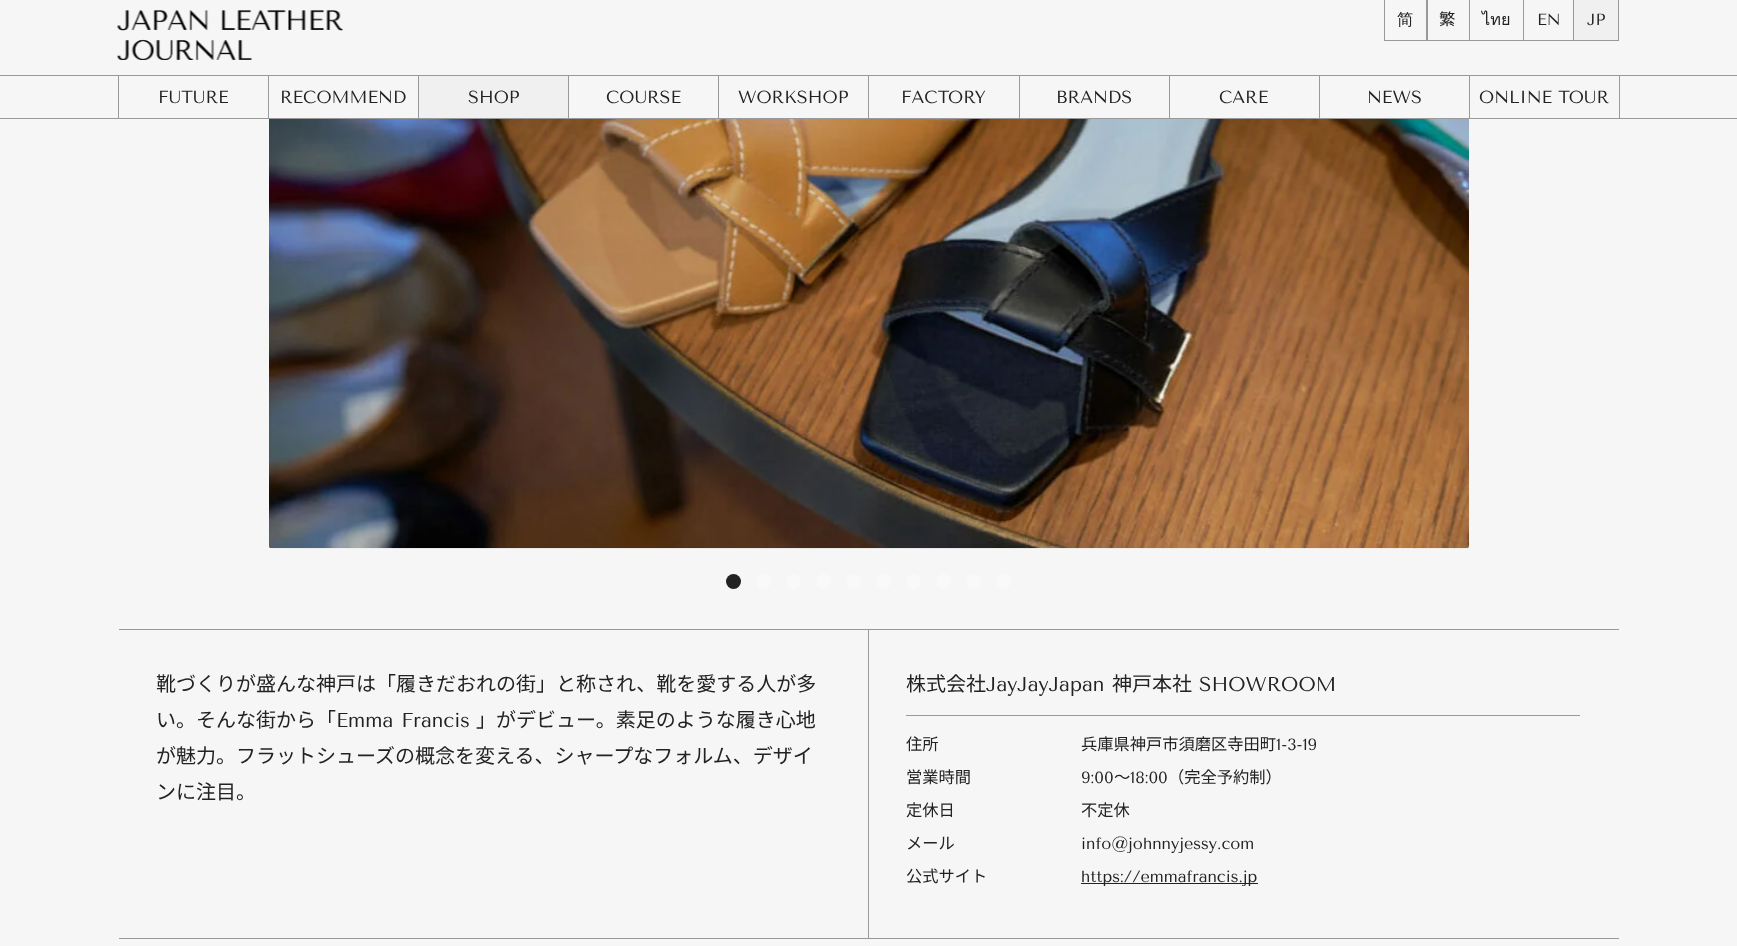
<svg xmlns="http://www.w3.org/2000/svg" width="1737" height="946" viewBox="0 0 1737 946">
  <rect width="100%" height="100%" fill="rgb(246,246,246)"/>
  <rect x="0" y="75" width="1737" height="1" fill="rgb(153,153,153)"/>
  <image x="117" y="10" width="226" height="50" href="pic1.png"/>
  <rect x="1384.5" y="-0.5" width="43" height="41" fill="none" stroke="rgb(153,153,153)"/>
  <text x="1397" y="25" font-family="WenQuanYi Zen Hei" font-size="16.25" font-weight="500" fill="rgb(34,34,34)">简</text>
  <rect x="1426.5" y="-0.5" width="43" height="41" fill="none" stroke="rgb(153,153,153)"/>
  <text x="1439" y="25" font-family="Noto Sans JP" font-size="16.25" fill="rgb(34,34,34)">繁</text>
  <rect x="1469.5" y="-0.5" width="54" height="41" fill="none" stroke="rgb(153,153,153)"/>
  <text x="1482" y="25" font-family="Loma" font-size="16.25" fill="rgb(34,34,34)">ไทย</text>
  <rect x="1523.5" y="-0.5" width="50" height="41" fill="none" stroke="rgb(153,153,153)"/>
  <text x="1537" y="25" font-family="Tenor Sans" font-size="16.25" fill="rgb(34,34,34)">EN</text>
  <rect x="1573.5" y="-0.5" width="45" height="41" fill="rgb(240,240,240)" stroke="rgb(153,153,153)"/>
  <text x="1587" y="25" font-family="Tenor Sans" font-size="16.25" fill="rgb(34,34,34)">JP</text>
  <rect x="0" y="118" width="1737" height="1" fill="rgb(153,153,153)"/>
  <rect x="118" y="76" width="1" height="42" fill="rgb(153,153,153)"/>
  <rect x="268" y="76" width="1" height="42" fill="rgb(153,153,153)"/>
  <text x="158" y="103" font-family="Tenor Sans" font-size="17.5" fill="rgb(34,34,34)">FUTURE</text>
  <rect x="418" y="76" width="1" height="42" fill="rgb(153,153,153)"/>
  <text x="280" y="103" font-family="Tenor Sans" font-size="17.5" fill="rgb(34,34,34)">RECOMMEND</text>
  <rect x="419" y="76" width="149" height="42" fill="rgb(240,240,240)"/>
  <rect x="568" y="76" width="1" height="42" fill="rgb(153,153,153)"/>
  <text x="468" y="103" font-family="Tenor Sans" font-size="17.5" fill="rgb(34,34,34)">SHOP</text>
  <rect x="718" y="76" width="1" height="42" fill="rgb(153,153,153)"/>
  <text x="606" y="103" font-family="Tenor Sans" font-size="17.5" fill="rgb(34,34,34)">COURSE</text>
  <rect x="868" y="76" width="1" height="42" fill="rgb(153,153,153)"/>
  <text x="738" y="103" font-family="Tenor Sans" font-size="17.5" fill="rgb(34,34,34)">WORKSHOP</text>
  <rect x="1019" y="76" width="1" height="42" fill="rgb(153,153,153)"/>
  <text x="901" y="103" font-family="Tenor Sans" font-size="17.5" fill="rgb(34,34,34)">FACTORY</text>
  <rect x="1169" y="76" width="1" height="42" fill="rgb(153,153,153)"/>
  <text x="1056" y="103" font-family="Tenor Sans" font-size="17.5" fill="rgb(34,34,34)">BRANDS</text>
  <rect x="1319" y="76" width="1" height="42" fill="rgb(153,153,153)"/>
  <text x="1219" y="103" font-family="Tenor Sans" font-size="17.5" fill="rgb(34,34,34)">CARE</text>
  <rect x="1469" y="76" width="1" height="42" fill="rgb(153,153,153)"/>
  <text x="1367" y="103" font-family="Tenor Sans" font-size="17.5" fill="rgb(34,34,34)">NEWS</text>
  <rect x="1619" y="76" width="1" height="42" fill="rgb(153,153,153)"/>
  <text x="1479" y="103" font-family="Tenor Sans" font-size="17.5" fill="rgb(34,34,34)">ONLINE TOUR</text>
  <rect x="119" y="629" width="1500" height="1" fill="rgb(153,153,153)"/>
  <image x="269" y="119" width="1200" height="430" href="pic2.png"/>
  <circle cx="733.5" cy="581.5" r="7.5" fill="rgb(34,34,34)"/>
  <circle cx="763.5" cy="581.5" r="7.5" fill="rgb(249,249,249)"/>
  <circle cx="793.5" cy="581.5" r="7.5" fill="rgb(249,249,249)"/>
  <circle cx="823.5" cy="581.5" r="7.5" fill="rgb(249,249,249)"/>
  <circle cx="853.5" cy="581.5" r="7.5" fill="rgb(249,249,249)"/>
  <circle cx="883.5" cy="581.5" r="7.5" fill="rgb(249,249,249)"/>
  <circle cx="913.5" cy="581.5" r="7.5" fill="rgb(249,249,249)"/>
  <circle cx="943.5" cy="581.5" r="7.5" fill="rgb(249,249,249)"/>
  <circle cx="973.5" cy="581.5" r="7.5" fill="rgb(249,249,249)"/>
  <circle cx="1003.5" cy="581.5" r="7.5" fill="rgb(249,249,249)"/>
  <rect x="119" y="938" width="1500" height="1" fill="rgb(153,153,153)"/>
  <g font-family="Noto Sans JP" font-size="20" fill="rgb(34,34,34)">
    <text>
      <tspan x="156" y="691">靴づくりが盛んな神戸は「履きだおれの街」と称され、靴を愛する人が多</tspan>
      <tspan x="156" y="727">い。そんな街から「</tspan>
    </text>
  </g>
  <text x="336" y="727" word-spacing="1" font-family="Tenor Sans" font-size="20" fill="rgb(34,34,34)">Emma Francis</text>
  <g font-family="Noto Sans JP" font-size="20" fill="rgb(34,34,34)">
    <text x="476" y="727">」がデビュー。素足のような履き心地</text>
    <text>
      <tspan x="156" y="763">が魅力。フラットシューズの概念を変える、シャープなフォルム、デザイ</tspan>
      <tspan x="156" y="799">ンに注目。</tspan>
    </text>
  </g>
  <rect x="868" y="630" width="1" height="308" fill="rgb(153,153,153)"/>
  <rect x="906" y="715" width="674" height="1" fill="rgb(153,153,153)"/>
  <text x="906" y="691" font-family="Noto Sans JP" font-size="20" fill="rgb(34,34,34)">株式会社</text>
  <text x="986" y="691" font-family="Tenor Sans" font-size="20" fill="rgb(34,34,34)">JayJayJapan</text>
  <text x="1112" y="691" font-family="Noto Sans JP" font-size="20" fill="rgb(34,34,34)">神戸本社</text>
  <text x="1199" y="691" font-family="Tenor Sans" font-size="20" fill="rgb(34,34,34)">SHOWROOM</text>
  <g font-family="Noto Sans JP" font-size="16.25" fill="rgb(34,34,34)">
    <text x="906" y="750">住所</text>
    <text x="1081" y="750">兵庫県神戸市須磨区寺田町</text>
  </g>
  <text x="1276" y="750" font-family="Tenor Sans" font-size="16.25" fill="rgb(34,34,34)">1-3-19</text>
  <text x="906" y="783" font-family="Noto Sans JP" font-size="16.25" fill="rgb(34,34,34)">営業時間</text>
  <text x="1081" y="783" font-family="Tenor Sans" font-size="16.25" fill="rgb(34,34,34)">9:00</text>
  <text x="1114" y="783" font-family="Noto Sans JP" font-size="16.25" fill="rgb(34,34,34)">～</text>
  <text x="1130" y="783" font-family="Tenor Sans" font-size="16.25" fill="rgb(34,34,34)">18:00</text>
  <g font-family="Noto Sans JP" font-size="16.25" fill="rgb(34,34,34)">
    <text x="1168" y="783">（完全予約制）</text>
    <text x="906" y="816">定休日</text>
    <text x="1081" y="816">不定休</text>
    <text x="906" y="849">メール</text>
  </g>
  <text x="1081" y="849" font-family="Tenor Sans" font-size="16.25" fill="rgb(34,34,34)">info@johnnyjessy.com</text>
  <text x="906" y="882" font-family="Noto Sans JP" font-size="16.25" fill="rgb(34,34,34)">公式サイト</text>
  <rect x="1081" y="883" width="177" height="1" fill="rgb(34,34,34)"/>
  <text x="1081" y="882" font-family="Tenor Sans" font-size="16.25" fill="rgb(34,34,34)">https://emmafrancis.jp</text>
</svg>
